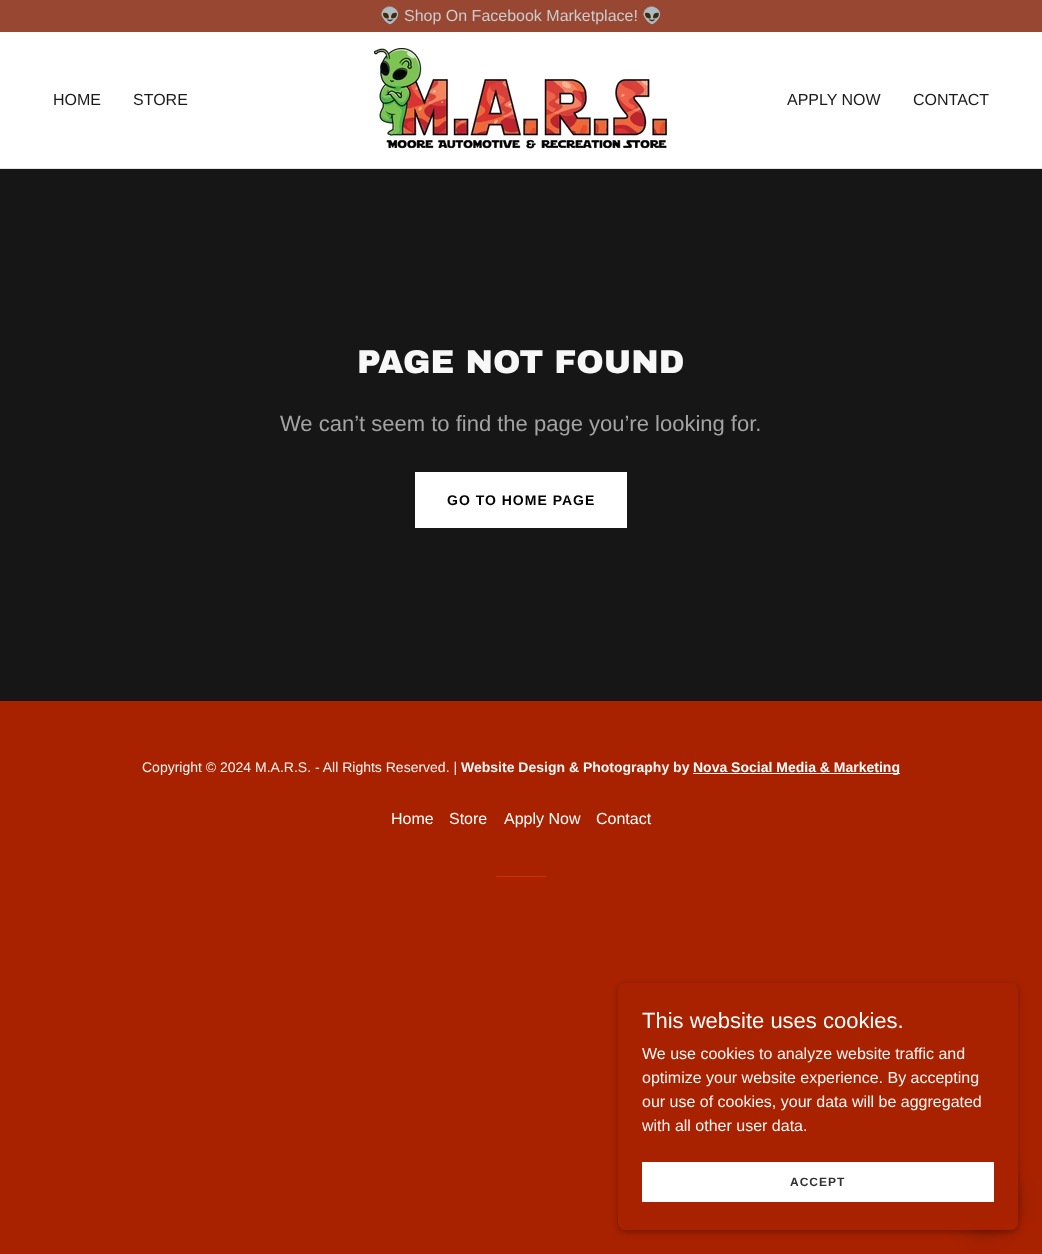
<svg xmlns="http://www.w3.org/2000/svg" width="1042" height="1254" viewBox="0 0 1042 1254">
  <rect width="100%" height="100%" fill="rgb(168,34,0)"/>
  <rect x="0" y="32" width="1042" height="136" fill="rgb(255,255,255)"/>
  <rect x="0" y="0" width="1042" height="32" fill="rgb(152,71,51)"/>
  <text x="380" y="21" font-family="Noto Color Emoji" font-size="16" fill="rgb(204,204,204)">👽</text>
  <text x="404" y="21" font-family="Liberation Sans" font-size="16" fill="rgb(204,204,204)">Shop On Facebook Marketplace!</text>
  <text x="642" y="21" font-family="Noto Color Emoji" font-size="16" fill="rgb(204,204,204)">👽</text>
  <g font-family="Liberation Sans" font-size="16" fill="rgb(27,27,27)">
    <text x="53" y="105">HOME</text>
    <text x="133" y="105">STORE</text>
  </g>
  <image x="374" y="48" width="293" height="101" href="pic1.png"/>
  <g font-family="Liberation Sans" font-size="16" fill="rgb(27,27,27)">
    <text x="787" y="105">APPLY NOW</text>
    <text x="913" y="105">CONTACT</text>
  </g>
  <rect x="0" y="168" width="1042" height="1" fill="rgb(226,226,226)"/>
  <rect x="0" y="169" width="1042" height="532" fill="rgb(22,22,22)"/>
  <text x="357" y="373" font-family="Archivo Black" font-size="33" font-weight="900" fill="rgb(247,247,247)">PAGE NOT FOUND</text>
  <text x="280" y="431" font-family="Liberation Sans" font-size="22" fill="rgb(164,164,164)">We can’t seem to find the page you’re looking for.</text>
  <rect x="415" y="472" width="212" height="56" fill="rgb(255,255,255)"/>
  <text x="447" y="505" font-family="Liberation Sans" font-size="14" font-weight="bold" letter-spacing="1" fill="rgb(0,0,0)">GO TO HOME PAGE</text>
  <text x="142" y="772" font-family="Liberation Sans" font-size="14" fill="rgb(247,247,247)">Copyright © 2024 M.A.R.S. - All Rights Reserved. |</text>
  <text x="461" y="772" font-family="Liberation Sans" font-size="14" font-weight="bold" fill="rgb(247,247,247)">Website Design &amp; Photography by</text>
  <rect x="693" y="773" width="207" height="1" fill="rgb(255,255,255)"/>
  <text x="693" y="772" font-family="Liberation Sans" font-size="14" font-weight="bold" fill="rgb(255,255,255)">Nova Social Media &amp; Marketing</text>
  <g font-family="Liberation Sans" font-size="16" fill="rgb(255,255,255)">
    <text x="391" y="824">Home</text>
    <text x="449" y="824">Store</text>
    <text x="504" y="824">Apply Now</text>
    <text x="596" y="824">Contact</text>
  </g>
  <rect x="496" y="876" width="50" height="1" fill="rgb(212,46,0)"/>
  <rect x="618" y="985" width="400" height="247" rx="7" fill="rgba(0,0,0,0.3)" filter="blur(3px)"/>
  <rect x="953" y="1168" width="65" height="65" rx="32.5" fill="rgba(0,0,0,0.25)" filter="blur(9px)"/>
  <rect x="618" y="983" width="400" height="247" rx="7" fill="rgb(168,34,0)"/>
  <text x="642" y="1028" font-family="Liberation Sans" font-size="22" fill="rgb(255,255,255)">This website uses cookies.</text>
  <g font-family="Liberation Sans" font-size="16" fill="rgb(247,247,247)">
    <text>
      <tspan x="642" y="1059">We use cookies to analyze website traffic and</tspan>
      <tspan x="642" y="1083">optimize your website experience. By accepting</tspan>
      <tspan x="642" y="1107">our use of cookies, your data will be aggregated</tspan>
      <tspan x="642" y="1131">with all other user data.</tspan>
    </text>
  </g>
  <rect x="642" y="1162" width="352" height="40" fill="rgb(255,255,255)"/>
  <text x="790" y="1186" font-family="Liberation Sans" font-size="12" font-weight="bold" letter-spacing="1" fill="rgb(48,48,48)">ACCEPT</text>
</svg>
